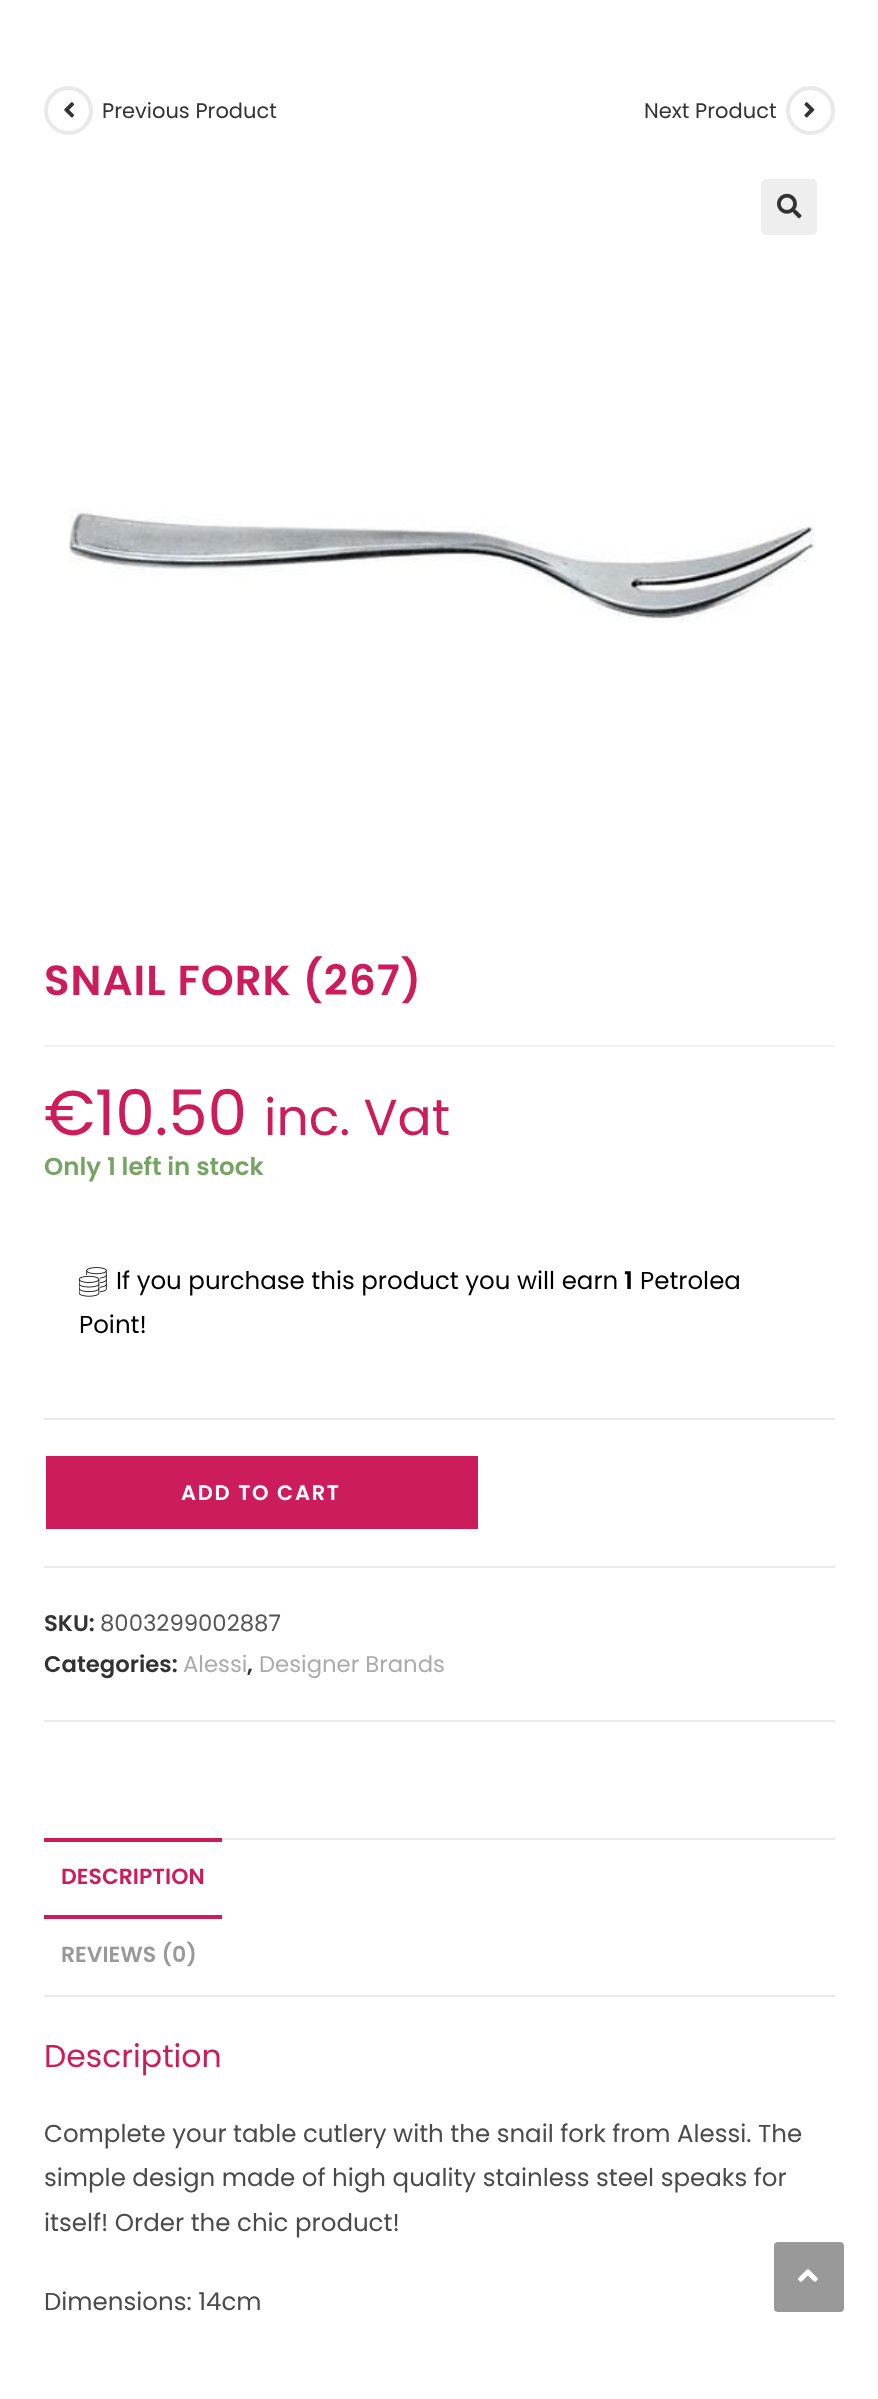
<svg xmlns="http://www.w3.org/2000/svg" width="878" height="2399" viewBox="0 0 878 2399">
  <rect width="100%" height="100%" fill="rgb(255,255,255)"/>
  <circle cx="68.5" cy="110.5" r="22.5" fill="none" stroke="rgb(233,233,233)" stroke-width="4"/>
  <image x="64" y="102" width="10" height="16" href="pic1.png"/>
  <g font-family="Poppins" font-size="21" fill="rgb(51,51,51)">
    <text x="102" y="118">Previous Product</text>
    <text x="644" y="118">Next Product</text>
  </g>
  <circle cx="810.5" cy="110.5" r="22.5" fill="none" stroke="rgb(233,233,233)" stroke-width="4"/>
  <image x="804" y="102" width="11" height="16" href="pic2.png"/>
  <rect x="761" y="179" width="56" height="56" rx="5" fill="rgb(238,238,238)"/>
  <image x="777" y="193" width="25" height="26" href="pic3.png"/>
  <image x="68" y="508" width="747" height="114" href="pic4.png"/>
  <rect x="44" y="1045" width="791" height="2" fill="rgb(241,241,241)"/>
  <text x="44" y="995" font-family="Poppins" font-size="42" font-weight="600" letter-spacing="1" fill="rgb(204,28,92)">SNAIL FORK (267)</text>
  <text x="44" y="1135" font-family="Poppins" font-size="63" fill="rgb(204,28,92)">€10.50</text>
  <text x="264" y="1135" font-family="Poppins" font-size="50.5" fill="rgb(204,28,92)">inc. Vat</text>
  <text x="44" y="1175" font-family="Poppins" font-size="24.5" font-weight="600" fill="rgb(119,164,100)">Only 1 left in stock</text>
  <image x="79" y="1267" width="28" height="30" href="pic5.png"/>
  <text x="116" y="1289" font-family="Poppins" font-size="24.5" fill="rgb(0,0,0)">If you purchase this product you will earn</text>
  <text x="624" y="1289" font-family="Poppins" font-size="24.5" font-weight="600" fill="rgb(0,0,0)">1</text>
  <g font-family="Poppins" font-size="24.5" fill="rgb(0,0,0)">
    <text x="640" y="1289">Petrolea</text>
    <text x="79" y="1333">Point!</text>
  </g>
  <rect x="44" y="1418" width="791" height="2" fill="rgb(234,234,234)"/>
  <rect x="44" y="1566" width="791" height="2" fill="rgb(234,234,234)"/>
  <rect x="46" y="1456" width="432" height="73" fill="rgb(204,28,92)"/>
  <text x="181" y="1500" font-family="Poppins" font-size="21" font-weight="600" letter-spacing="1.75" fill="rgb(255,255,255)">ADD TO CART</text>
  <rect x="44" y="1720" width="791" height="2" fill="rgb(234,234,234)"/>
  <text x="44" y="1631" font-family="Poppins" font-size="22.75" font-weight="600" fill="rgb(51,51,51)">SKU:</text>
  <text x="100" y="1631" font-family="Poppins" font-size="22.75" fill="rgb(85,85,85)">8003299002887</text>
  <text x="44" y="1672" font-family="Poppins" font-size="22.75" font-weight="600" fill="rgb(51,51,51)">Categories:</text>
  <text x="183" y="1672" font-family="Poppins" font-size="22.75" fill="rgb(171,171,171)">Alessi</text>
  <text x="247" y="1672" font-family="Poppins" font-size="22.75" font-weight="600" fill="rgb(51,51,51)">,</text>
  <text x="259" y="1672" font-family="Poppins" font-size="22.75" fill="rgb(171,171,171)">Designer Brands</text>
  <rect x="222" y="1838" width="613" height="2" fill="rgb(234,234,234)"/>
  <rect x="44" y="1995" width="791" height="2" fill="rgb(234,234,234)"/>
  <rect x="44" y="1838" width="178" height="4" fill="rgb(204,28,92)"/>
  <rect x="44" y="1915" width="178" height="4" fill="rgb(204,28,92)"/>
  <text x="61" y="1884" font-family="Poppins" font-size="22" font-weight="600" fill="rgb(204,28,92)">DESCRIPTION</text>
  <text x="61" y="1962" font-family="Poppins" font-size="22" font-weight="600" fill="rgb(153,153,153)">REVIEWS (0)</text>
  <text x="44" y="2067" font-family="Poppins" font-size="31.5" fill="rgb(204,28,92)">Description</text>
  <g font-family="Poppins" font-size="24.5" fill="rgb(74,74,74)">
    <text>
      <tspan x="44" y="2142">Complete your table cutlery with the snail fork from Alessi. The</tspan>
      <tspan x="44" y="2186">simple design made of high quality stainless steel speaks for</tspan>
      <tspan x="44" y="2231">itself! Order the chic product!</tspan>
    </text>
    <text x="44" y="2310">Dimensions: 14cm</text>
  </g>
  <rect x="774" y="2242" width="70" height="70" rx="4" fill="rgb(153,153,153)"/>
  <image x="798" y="2269" width="20" height="13" href="pic6.png"/>
</svg>
